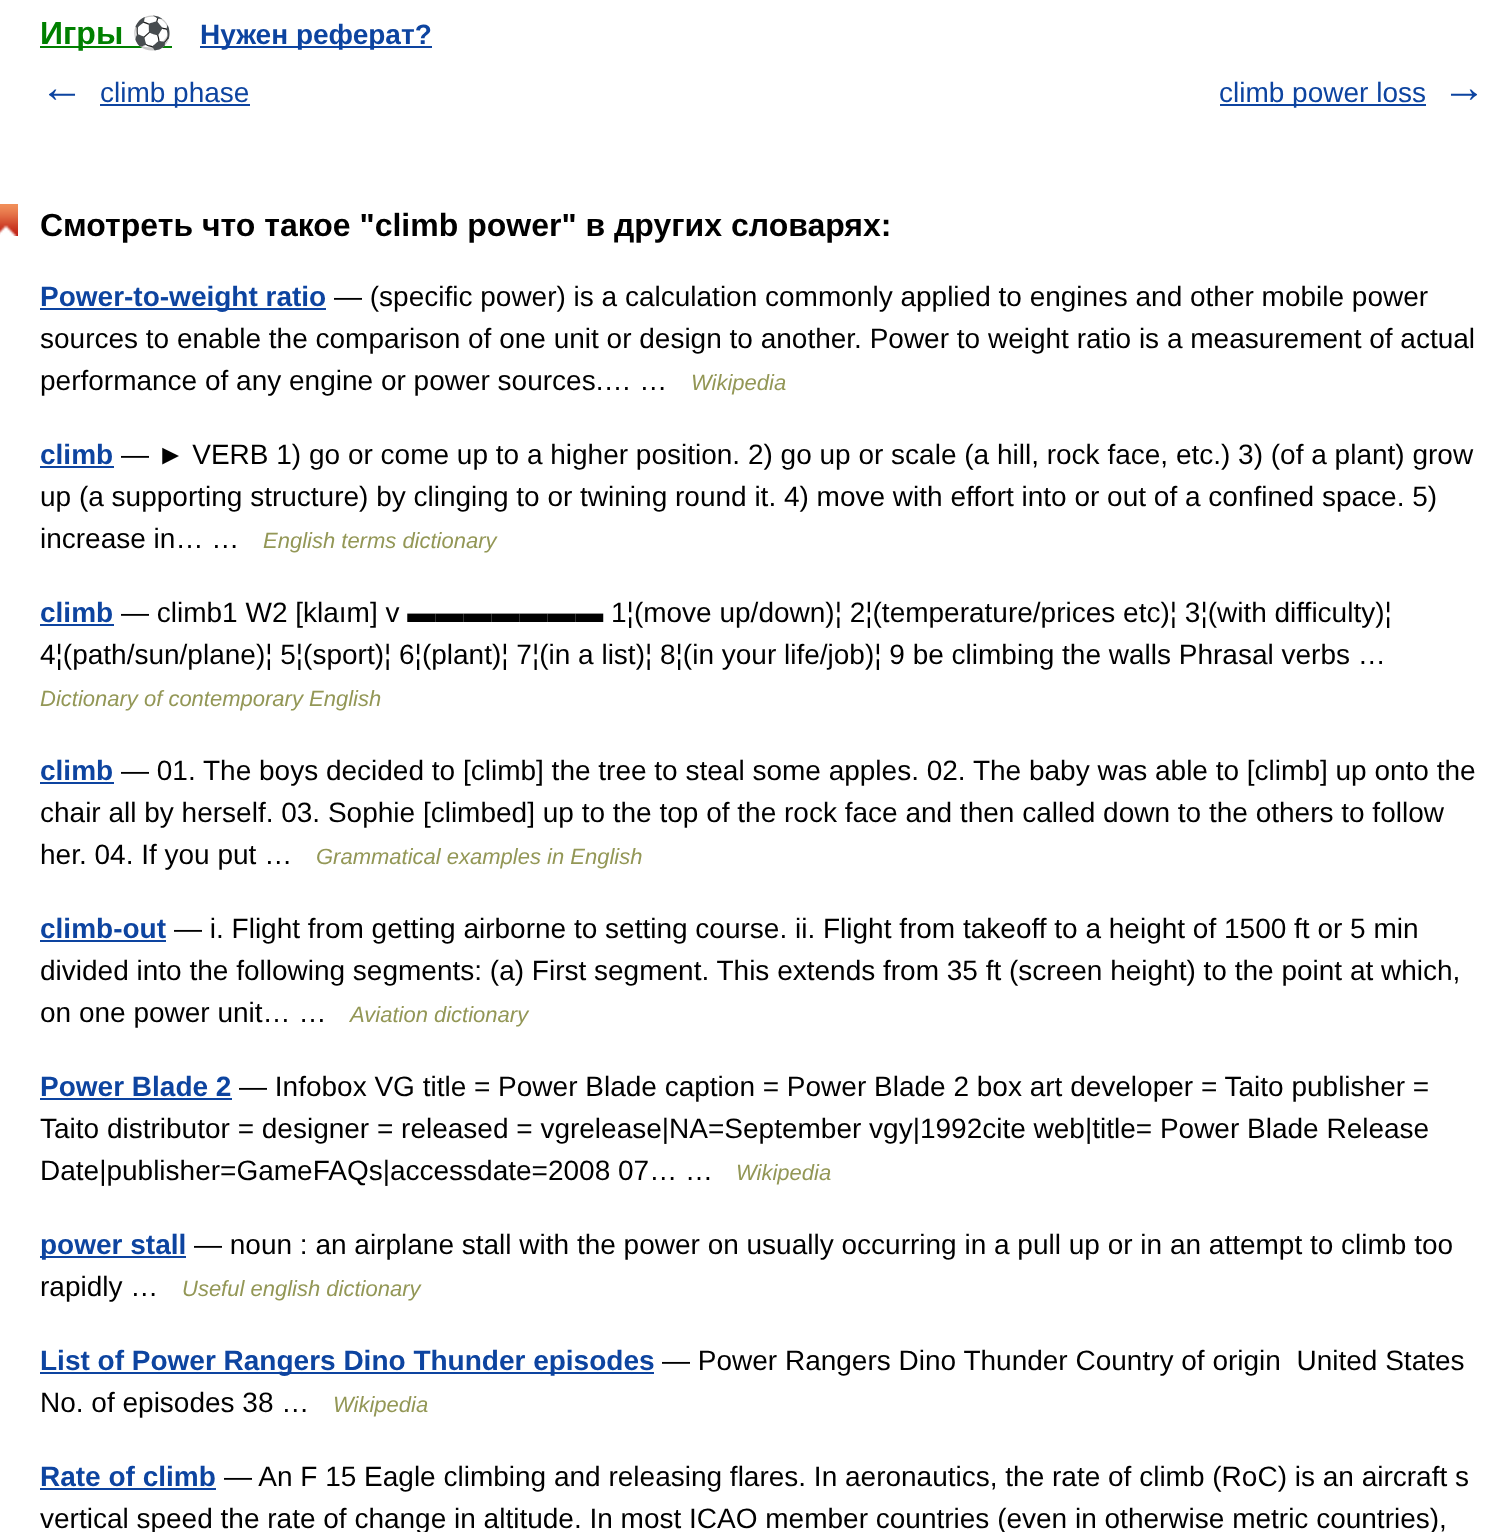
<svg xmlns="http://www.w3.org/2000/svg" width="1495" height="1532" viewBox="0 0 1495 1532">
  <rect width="100%" height="100%" fill="rgb(255,255,255)"/>
  <rect x="40" y="46" width="132" height="2" fill="rgb(0,128,0)"/>
  <text x="40" y="44" font-family="Liberation Sans" font-size="32" font-weight="bold" fill="rgb(0,128,0)">Игры</text>
  <text x="132" y="44" font-family="Noto Color Emoji" font-size="32" font-weight="bold" fill="rgb(0,128,0)">⚽</text>
  <rect x="200" y="46" width="232" height="2" fill="rgb(13,68,160)"/>
  <text x="200" y="44" font-family="Liberation Sans" font-size="28" font-weight="bold" fill="rgb(13,68,160)">Нужен реферат?</text>
  <text x="40" y="102" font-family="Liberation Sans" font-size="44" font-weight="bold" fill="rgb(13,68,160)">←</text>
  <rect x="100" y="104" width="150" height="2" fill="rgb(13,68,160)"/>
  <text x="100" y="102" font-family="Liberation Sans" font-size="28" fill="rgb(13,68,160)">climb phase</text>
  <rect x="1220" y="104" width="206" height="2" fill="rgb(13,68,160)"/>
  <text x="1219" y="102" font-family="Liberation Sans" font-size="28" fill="rgb(13,68,160)">climb power loss</text>
  <text x="1442" y="102" font-family="Liberation Sans" font-size="44" font-weight="bold" fill="rgb(13,68,160)">→</text>
  <image x="0" y="204" width="18" height="32" href="pic1.png"/>
  <text x="40" y="236" font-family="Liberation Sans" font-size="32" font-weight="bold" fill="rgb(0,0,0)">Смотреть что такое "climb power" в других словарях:</text>
  <rect x="40" y="308" width="286" height="2" fill="rgb(13,68,160)"/>
  <text x="40" y="306" font-family="Liberation Sans" font-size="28" font-weight="bold" fill="rgb(13,68,160)">Power-to-weight ratio</text>
  <g font-family="Liberation Sans" font-size="28" fill="rgb(0,0,0)">
    <text x="334" y="306">— (specific power) is a calculation commonly applied to engines and other mobile power</text>
    <text>
      <tspan x="40" y="348">sources to enable the comparison of one unit or design to another. Power to weight ratio is a measurement of actual</tspan>
      <tspan x="40" y="390">performance of any engine or power sources.… …</tspan>
    </text>
  </g>
  <text x="691" y="390" font-family="Liberation Sans" font-size="22" font-style="italic" fill="rgb(147,151,86)">Wikipedia</text>
  <text x="40" y="464" font-family="Liberation Sans" font-size="28" font-weight="bold" fill="rgb(13,68,160)">climb</text>
  <rect x="40" y="466" width="74" height="2" fill="rgb(13,68,160)"/>
  <g font-family="Liberation Sans" font-size="28" fill="rgb(0,0,0)">
    <text x="121" y="464">— ► VERB 1) go or come up to a higher position. 2) go up or scale (a hill, rock face, etc.) 3) (of a plant) grow</text>
    <text>
      <tspan x="40" y="506">up (a supporting structure) by clinging to or twining round it. 4) move with effort into or out of a confined space. 5)</tspan>
      <tspan x="40" y="548">increase in… …</tspan>
    </text>
  </g>
  <text x="263" y="548" font-family="Liberation Sans" font-size="22" font-style="italic" fill="rgb(147,151,86)">English terms dictionary</text>
  <text x="40" y="622" font-family="Liberation Sans" font-size="28" font-weight="bold" fill="rgb(13,68,160)">climb</text>
  <rect x="40" y="624" width="74" height="2" fill="rgb(13,68,160)"/>
  <g font-family="Liberation Sans" font-size="28" fill="rgb(0,0,0)">
    <text x="121" y="622">— climb1 W2 [klaım] v ▬▬▬▬▬▬▬ 1¦(move up/down)¦ 2¦(temperature/prices etc)¦ 3¦(with difficulty)¦</text>
    <text x="40" y="664">4¦(path/sun/plane)¦ 5¦(sport)¦ 6¦(plant)¦ 7¦(in a list)¦ 8¦(in your life/job)¦ 9 be climbing the walls Phrasal verbs …</text>
  </g>
  <text x="40" y="706" font-family="Liberation Sans" font-size="22" font-style="italic" fill="rgb(147,151,86)">Dictionary of contemporary English</text>
  <text x="40" y="780" font-family="Liberation Sans" font-size="28" font-weight="bold" fill="rgb(13,68,160)">climb</text>
  <rect x="40" y="782" width="74" height="2" fill="rgb(13,68,160)"/>
  <g font-family="Liberation Sans" font-size="28" fill="rgb(0,0,0)">
    <text x="121" y="780">— 01. The boys decided to [climb] the tree to steal some apples. 02. The baby was able to [climb] up onto the</text>
    <text>
      <tspan x="40" y="822">chair all by herself. 03. Sophie [climbed] up to the top of the rock face and then called down to the others to follow</tspan>
      <tspan x="40" y="864">her. 04. If you put …</tspan>
    </text>
  </g>
  <text x="316" y="864" font-family="Liberation Sans" font-size="22" font-style="italic" fill="rgb(147,151,86)">Grammatical examples in English</text>
  <text x="40" y="938" font-family="Liberation Sans" font-size="28" font-weight="bold" fill="rgb(13,68,160)">climb-out</text>
  <rect x="40" y="940" width="126" height="2" fill="rgb(13,68,160)"/>
  <g font-family="Liberation Sans" font-size="28" fill="rgb(0,0,0)">
    <text x="174" y="938">— i. Flight from getting airborne to setting course. ii. Flight from takeoff to a height of 1500 ft or 5 min</text>
    <text>
      <tspan x="40" y="980">divided into the following segments: (a) First segment. This extends from 35 ft (screen height) to the point at which,</tspan>
      <tspan x="40" y="1022">on one power unit… …</tspan>
    </text>
  </g>
  <text x="350" y="1022" font-family="Liberation Sans" font-size="22" font-style="italic" fill="rgb(147,151,86)">Aviation dictionary</text>
  <text x="40" y="1096" font-family="Liberation Sans" font-size="28" font-weight="bold" fill="rgb(13,68,160)">Power Blade 2</text>
  <rect x="40" y="1098" width="192" height="2" fill="rgb(13,68,160)"/>
  <g font-family="Liberation Sans" font-size="28" fill="rgb(0,0,0)">
    <text x="239" y="1096">— Infobox VG title = Power Blade caption = Power Blade 2 box art developer = Taito publisher =</text>
    <text>
      <tspan x="40" y="1138">Taito distributor = designer = released = vgrelease|NA=September vgy|1992cite web|title= Power Blade Release</tspan>
      <tspan x="40" y="1180">Date|publisher=GameFAQs|accessdate=2008 07… …</tspan>
    </text>
  </g>
  <text x="736" y="1180" font-family="Liberation Sans" font-size="22" font-style="italic" fill="rgb(147,151,86)">Wikipedia</text>
  <rect x="40" y="1256" width="146" height="2" fill="rgb(13,68,160)"/>
  <text x="40" y="1254" font-family="Liberation Sans" font-size="28" font-weight="bold" fill="rgb(13,68,160)">power stall</text>
  <g font-family="Liberation Sans" font-size="28" fill="rgb(0,0,0)">
    <text x="194" y="1254">— noun : an airplane stall with the power on usually occurring in a pull up or in an attempt to climb too</text>
    <text x="40" y="1296">rapidly …</text>
  </g>
  <text x="182" y="1296" font-family="Liberation Sans" font-size="22" font-style="italic" fill="rgb(147,151,86)">Useful english dictionary</text>
  <rect x="40" y="1372" width="614" height="2" fill="rgb(13,68,160)"/>
  <text x="40" y="1370" font-family="Liberation Sans" font-size="28" font-weight="bold" fill="rgb(13,68,160)">List of Power Rangers Dino Thunder episodes</text>
  <g font-family="Liberation Sans" font-size="28" fill="rgb(0,0,0)">
    <text x="662" y="1370" xml:space="preserve">— Power Rangers Dino Thunder Country of origin  United States</text>
    <text x="40" y="1412">No. of episodes 38 …</text>
  </g>
  <text x="333" y="1412" font-family="Liberation Sans" font-size="22" font-style="italic" fill="rgb(147,151,86)">Wikipedia</text>
  <text x="40" y="1486" font-family="Liberation Sans" font-size="28" font-weight="bold" fill="rgb(13,68,160)">Rate of climb</text>
  <rect x="40" y="1488" width="176" height="2" fill="rgb(13,68,160)"/>
  <g font-family="Liberation Sans" font-size="28" fill="rgb(0,0,0)">
    <text x="224" y="1486">— An F 15 Eagle climbing and releasing flares. In aeronautics, the rate of climb (RoC) is an aircraft s</text>
    <text x="40" y="1528">vertical speed the rate of change in altitude. In most ICAO member countries (even in otherwise metric countries),</text>
  </g>
</svg>
